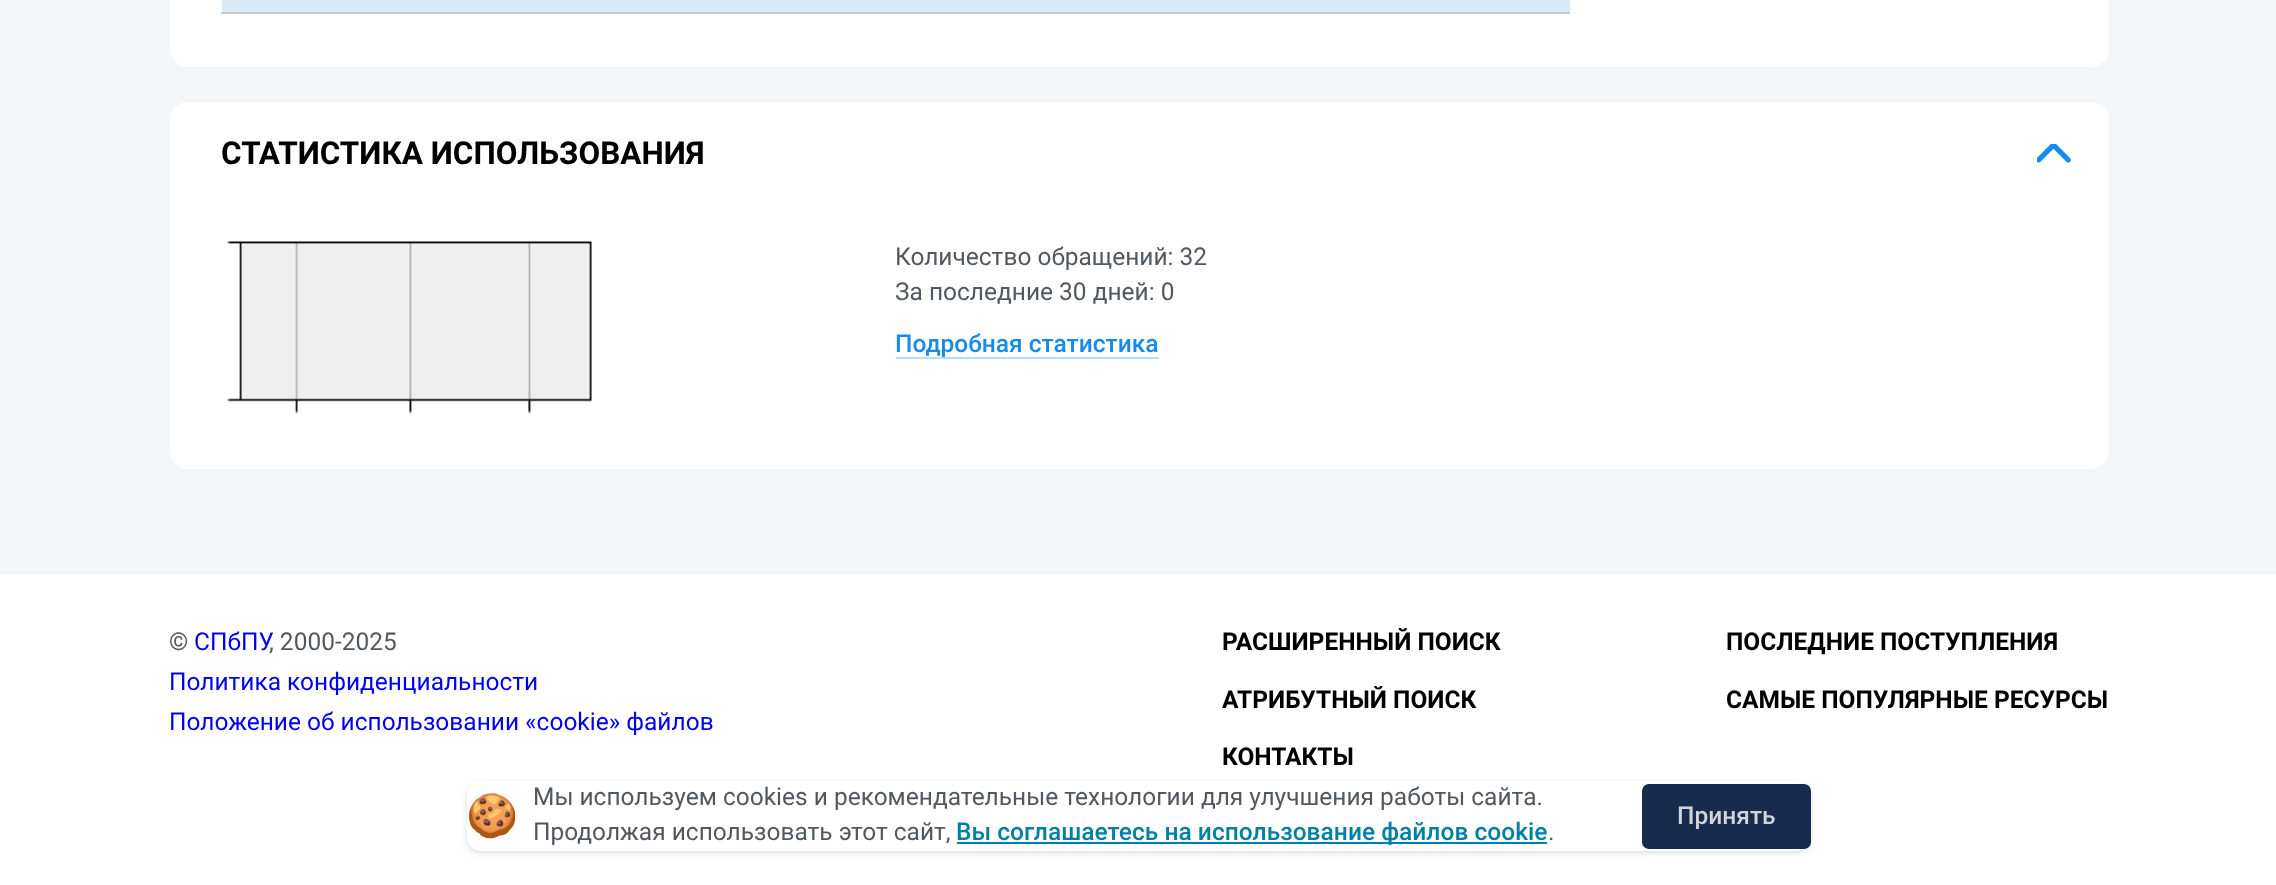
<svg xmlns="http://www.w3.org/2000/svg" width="2276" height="885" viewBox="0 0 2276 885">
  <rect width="100%" height="100%" fill="rgb(243,246,248)"/>
  <rect x="170" y="-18" width="1939" height="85" rx="18" fill="rgb(255,255,255)"/>
  <rect x="222" y="0" width="1348" height="12" fill="rgb(219,233,245)"/>
  <rect x="221" y="12" width="1349" height="2" fill="rgb(196,203,210)"/>
  <rect x="170" y="102" width="1939" height="367" rx="18" fill="rgb(255,255,255)"/>
  <text x="221" y="164" font-family="Roboto" font-size="31.5" font-weight="bold" fill="rgb(0,0,0)">СТАТИСТИКА ИСПОЛЬЗОВАНИЯ</text>
  <image x="2037" y="144" width="34" height="19" href="pic1.png"/>
  <image x="227" y="241" width="365" height="173" href="pic2.png"/>
  <g font-family="Roboto" font-size="24.5" fill="rgb(82,88,95)">
    <text>
      <tspan x="895" y="265">Количество обращений: 32</tspan>
      <tspan x="895" y="300">За последние 30 дней: 0</tspan>
    </text>
  </g>
  <text x="895" y="352" font-family="Roboto" font-size="24.5" font-weight="500" fill="rgb(22,138,237)">Подробная статистика</text>
  <rect x="896" y="357" width="263" height="2" fill="rgb(185,220,250)"/>
  <rect x="0" y="574" width="2276" height="311" fill="rgb(255,255,255)"/>
  <text x="169" y="650" font-family="Roboto" font-size="24.5" fill="rgb(82,88,95)">©</text>
  <text x="194" y="650" font-family="Roboto" font-size="24.5" fill="rgb(0,0,238)">СПбПУ</text>
  <text x="269" y="650" font-family="Roboto" font-size="24.5" fill="rgb(82,88,95)">, 2000-2025</text>
  <g font-family="Roboto" font-size="24.5" fill="rgb(0,0,238)">
    <text>
      <tspan x="169" y="690">Политика конфиденциальности</tspan>
      <tspan x="169" y="730">Положение об использовании «cookie» файлов</tspan>
    </text>
  </g>
  <g font-family="Roboto" font-size="24.5" font-weight="bold" fill="rgb(0,0,0)">
    <text x="1222" y="650">РАСШИРЕННЫЙ ПОИСК</text>
    <text x="1222" y="708">АТРИБУТНЫЙ ПОИСК</text>
    <text x="1222" y="765">КОНТАКТЫ</text>
    <text x="1726" y="650">ПОСЛЕДНИЕ ПОСТУПЛЕНИЯ</text>
    <text x="1726" y="708">САМЫЕ ПОПУЛЯРНЫЕ РЕСУРСЫ</text>
  </g>
  <rect x="467" y="782" width="1344" height="70" rx="14" fill="rgba(0,0,0,0.07)" filter="blur(1.5px)"/>
  <rect x="467" y="784" width="1344" height="70" rx="14" fill="rgba(10,37,64,0.09)" filter="blur(4px)"/>
  <rect x="467" y="781" width="1344" height="70" rx="14" fill="rgb(255,255,255)"/>
  <text x="466" y="830" font-family="Noto Color Emoji" font-size="42" fill="rgb(82,88,95)">🍪</text>
  <g font-family="Roboto" font-size="24.5" fill="rgb(82,88,95)">
    <text>
      <tspan x="533" y="805">Мы используем cookies и рекомендательные технологии для улучшения работы сайта.</tspan>
      <tspan x="533" y="840">Продолжая использовать этот сайт,</tspan>
    </text>
  </g>
  <rect x="957" y="842" width="590" height="2" fill="rgb(0,128,167)"/>
  <text x="956" y="840" font-family="Roboto" font-size="24.5" font-weight="500" fill="rgb(0,128,167)">Вы соглашаетесь на использование файлов cookie</text>
  <text x="1548" y="840" font-family="Roboto" font-size="24.5" fill="rgb(82,88,95)">.</text>
  <rect x="1642" y="784" width="169" height="65" rx="7" fill="rgb(23,43,77)"/>
  <text x="1677" y="824" font-family="Roboto" font-size="24.5" font-weight="500" fill="rgb(209,213,219)">Принять</text>
</svg>
